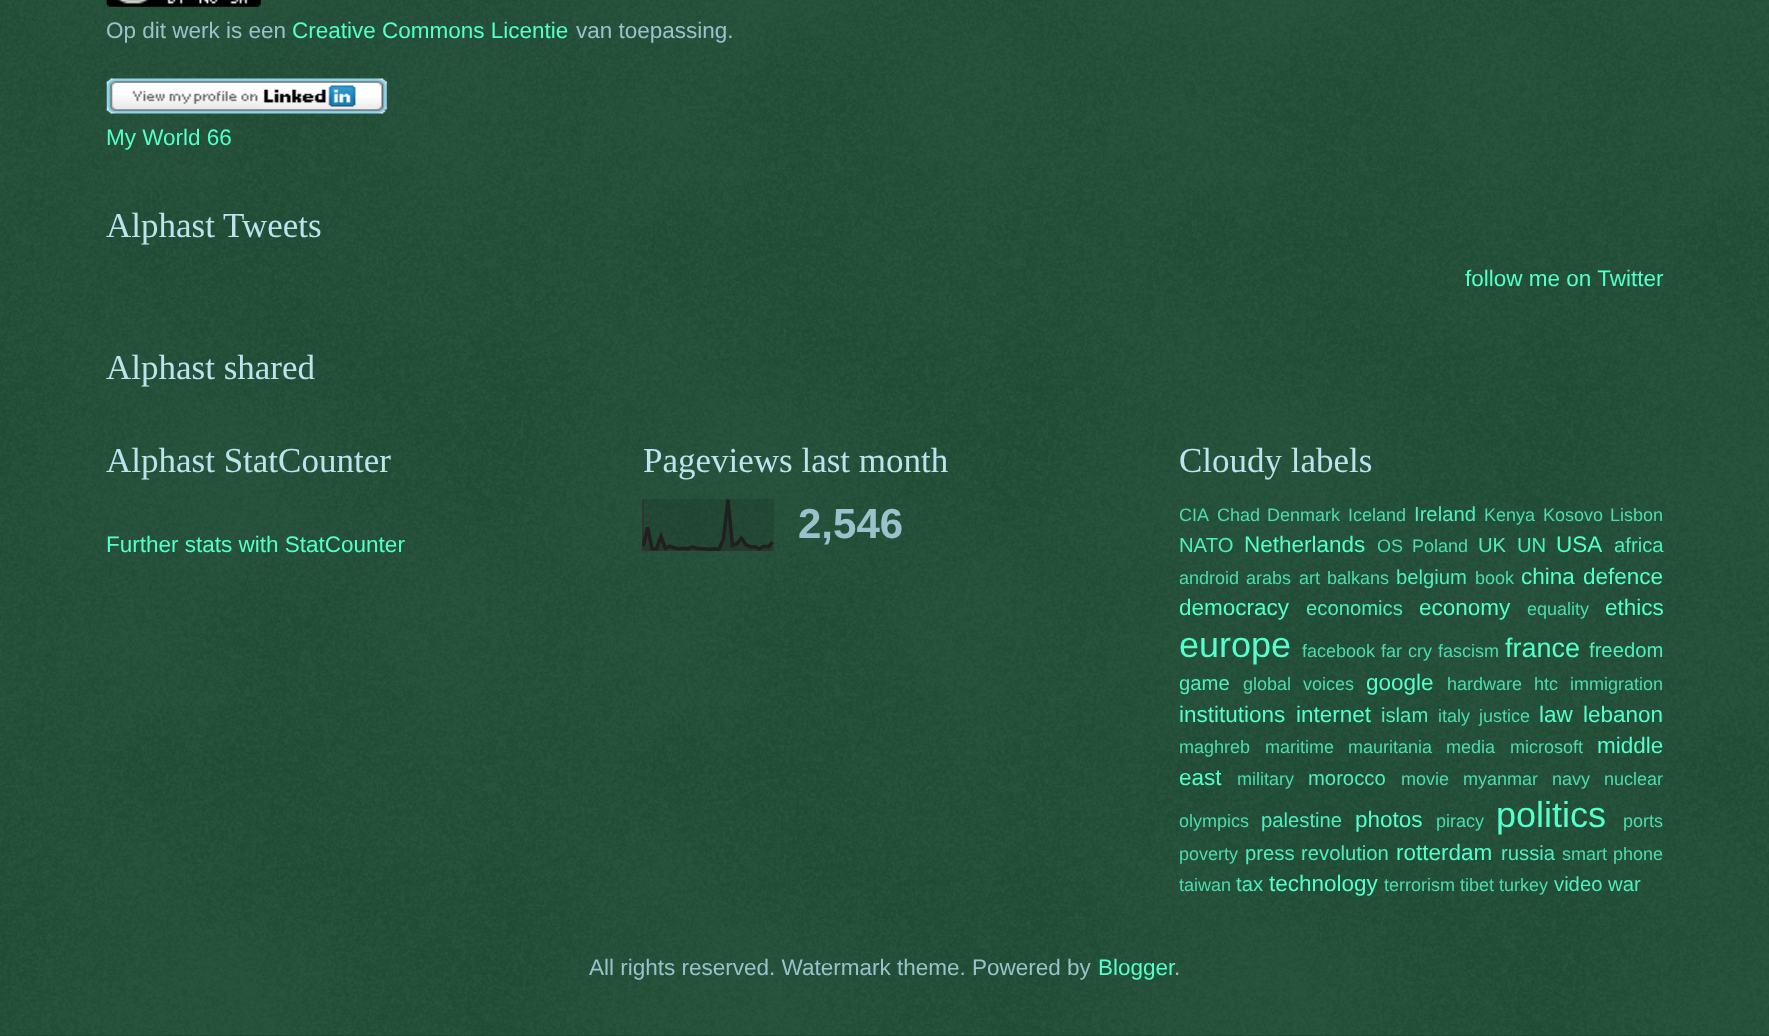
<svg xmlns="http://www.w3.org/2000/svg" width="1769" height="1036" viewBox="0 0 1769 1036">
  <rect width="100%" height="100%" fill="rgb(0,51,25)"/>
  <image x="0" y="0" width="1769" height="1036" href="pic1.png"/>
  <image x="106" y="0" width="155" height="7" href="pic2.png"/>
  <text x="106" y="38" font-family="Liberation Sans" font-size="22.5" fill="rgb(153,195,204)">Op dit werk is een</text>
  <text x="292" y="38" font-family="Liberation Sans" font-size="22.5" fill="rgb(85,255,204)">Creative Commons Licentie</text>
  <text x="576" y="38" font-family="Liberation Sans" font-size="22.5" fill="rgb(153,195,204)">van toepassing.</text>
  <image x="106" y="78" width="281" height="36" href="pic3.png"/>
  <text x="106" y="145" font-family="Liberation Sans" font-size="22.5" fill="rgb(85,255,204)">My World 66</text>
  <text x="106" y="237" font-family="Liberation Serif" font-size="35" fill="rgb(187,229,238)">Alphast Tweets</text>
  <text x="1465" y="286" font-family="Liberation Sans" font-size="22.5" fill="rgb(85,255,204)">follow me on Twitter</text>
  <g font-family="Liberation Serif" font-size="35" fill="rgb(187,229,238)">
    <text x="106" y="379">Alphast shared</text>
    <text x="106" y="472">Alphast StatCounter</text>
  </g>
  <text x="106" y="552" font-family="Liberation Sans" font-size="22.5" fill="rgb(85,255,204)">Further stats with StatCounter</text>
  <text x="643" y="472" font-family="Liberation Serif" font-size="35" fill="rgb(187,229,238)">Pageviews last month</text>
  <image x="642" y="499" width="132" height="52" href="pic4.png"/>
  <text x="798" y="538" font-family="Liberation Sans" font-size="42" font-weight="bold" fill="rgb(153,195,204)">2,546</text>
  <text x="1179" y="472" font-family="Liberation Serif" font-size="35" fill="rgb(187,229,238)">Cloudy labels</text>
  <g font-family="Liberation Sans" font-size="18" fill="rgb(76,220,175)">
    <text x="1179" y="521">CIA</text>
    <text x="1217" y="521">Chad</text>
    <text x="1267" y="521">Denmark</text>
    <text x="1348" y="521">Iceland</text>
  </g>
  <text x="1414" y="521" font-family="Liberation Sans" font-size="20.25" fill="rgb(80,237,189)">Ireland</text>
  <g font-family="Liberation Sans" font-size="18" fill="rgb(76,220,175)">
    <text x="1484" y="521">Kenya</text>
    <text x="1543" y="521">Kosovo</text>
    <text x="1610" y="521">Lisbon</text>
  </g>
  <text x="1179" y="552" font-family="Liberation Sans" font-size="20.25" fill="rgb(80,237,189)">NATO</text>
  <text x="1244" y="552" font-family="Liberation Sans" font-size="22.5" fill="rgb(85,255,204)">Netherlands</text>
  <g font-family="Liberation Sans" font-size="18" fill="rgb(76,220,175)">
    <text x="1377" y="552">OS</text>
    <text x="1412" y="552">Poland</text>
  </g>
  <g font-family="Liberation Sans" font-size="20.25" fill="rgb(80,237,189)">
    <text x="1478" y="552">UK</text>
    <text x="1517" y="552">UN</text>
  </g>
  <text x="1556" y="552" font-family="Liberation Sans" font-size="22.5" fill="rgb(85,255,204)">USA</text>
  <text x="1614" y="552" font-family="Liberation Sans" font-size="20.25" fill="rgb(80,237,189)">africa</text>
  <g font-family="Liberation Sans" font-size="18" fill="rgb(76,220,175)">
    <text x="1179" y="584">android</text>
    <text x="1246" y="584">arabs</text>
    <text x="1299" y="584">art</text>
    <text x="1327" y="584">balkans</text>
  </g>
  <text x="1396" y="584" font-family="Liberation Sans" font-size="20.25" fill="rgb(80,237,189)">belgium</text>
  <text x="1475" y="584" font-family="Liberation Sans" font-size="18" fill="rgb(76,220,175)">book</text>
  <g font-family="Liberation Sans" font-size="22.5" fill="rgb(85,255,204)">
    <text x="1521" y="584">china</text>
    <text x="1583" y="584">defence</text>
    <text x="1179" y="615">democracy</text>
  </g>
  <text x="1306" y="615" font-family="Liberation Sans" font-size="20.25" fill="rgb(80,237,189)">economics</text>
  <text x="1419" y="615" font-family="Liberation Sans" font-size="22.5" fill="rgb(85,255,204)">economy</text>
  <text x="1527" y="615" font-family="Liberation Sans" font-size="18" fill="rgb(76,220,175)">equality</text>
  <text x="1605" y="615" font-family="Liberation Sans" font-size="22.5" fill="rgb(85,255,204)">ethics</text>
  <text x="1179" y="657" font-family="Liberation Sans" font-size="36" fill="rgb(85,255,204)">europe</text>
  <g font-family="Liberation Sans" font-size="18" fill="rgb(76,220,175)">
    <text x="1302" y="657">facebook</text>
    <text x="1381" y="657" word-spacing="1">far cry</text>
    <text x="1438" y="657">fascism</text>
  </g>
  <text x="1505" y="657" font-family="Liberation Sans" font-size="27" fill="rgb(85,255,204)">france</text>
  <g font-family="Liberation Sans" font-size="20.25" fill="rgb(80,237,189)">
    <text x="1589" y="657">freedom</text>
    <text x="1179" y="690">game</text>
  </g>
  <text x="1243" y="690" word-spacing="7" font-family="Liberation Sans" font-size="18" fill="rgb(76,220,175)">global voices</text>
  <text x="1366" y="690" font-family="Liberation Sans" font-size="22.5" fill="rgb(85,255,204)">google</text>
  <g font-family="Liberation Sans" font-size="18" fill="rgb(76,220,175)">
    <text x="1447" y="690">hardware</text>
    <text x="1534" y="690">htc</text>
    <text x="1570" y="690">immigration</text>
  </g>
  <g font-family="Liberation Sans" font-size="22.5" fill="rgb(85,255,204)">
    <text x="1179" y="722">institutions</text>
    <text x="1296" y="722">internet</text>
  </g>
  <text x="1381" y="722" font-family="Liberation Sans" font-size="20.25" fill="rgb(80,237,189)">islam</text>
  <g font-family="Liberation Sans" font-size="18" fill="rgb(76,220,175)">
    <text x="1438" y="722">italy</text>
    <text x="1479" y="722">justice</text>
  </g>
  <g font-family="Liberation Sans" font-size="22.5" fill="rgb(85,255,204)">
    <text x="1539" y="722">law</text>
    <text x="1583" y="722">lebanon</text>
  </g>
  <g font-family="Liberation Sans" font-size="18" fill="rgb(76,220,175)">
    <text x="1179" y="753">maghreb</text>
    <text x="1265" y="753">maritime</text>
    <text x="1348" y="753">mauritania</text>
    <text x="1446" y="753">media</text>
    <text x="1510" y="753">microsoft</text>
  </g>
  <g font-family="Liberation Sans" font-size="22.5" fill="rgb(85,255,204)">
    <text x="1597" y="753">middle</text>
    <text x="1179" y="785">east</text>
  </g>
  <text x="1237" y="785" font-family="Liberation Sans" font-size="18" fill="rgb(76,220,175)">military</text>
  <text x="1308" y="785" font-family="Liberation Sans" font-size="20.25" fill="rgb(80,237,189)">morocco</text>
  <g font-family="Liberation Sans" font-size="18" fill="rgb(76,220,175)">
    <text x="1401" y="785">movie</text>
    <text x="1463" y="785">myanmar</text>
    <text x="1552" y="785">navy</text>
    <text x="1604" y="785">nuclear</text>
    <text x="1179" y="827">olympics</text>
  </g>
  <text x="1261" y="827" font-family="Liberation Sans" font-size="20.25" fill="rgb(80,237,189)">palestine</text>
  <text x="1355" y="827" font-family="Liberation Sans" font-size="22.5" fill="rgb(85,255,204)">photos</text>
  <text x="1436" y="827" font-family="Liberation Sans" font-size="18" fill="rgb(76,220,175)">piracy</text>
  <text x="1496" y="827" font-family="Liberation Sans" font-size="36" fill="rgb(85,255,204)">politics</text>
  <g font-family="Liberation Sans" font-size="18" fill="rgb(76,220,175)">
    <text x="1623" y="827">ports</text>
    <text x="1179" y="860">poverty</text>
  </g>
  <g font-family="Liberation Sans" font-size="20.25" fill="rgb(80,237,189)">
    <text x="1245" y="860">press</text>
    <text x="1301" y="860">revolution</text>
  </g>
  <text x="1396" y="860" font-family="Liberation Sans" font-size="22.5" fill="rgb(85,255,204)">rotterdam</text>
  <text x="1501" y="860" font-family="Liberation Sans" font-size="20.25" fill="rgb(80,237,189)">russia</text>
  <g font-family="Liberation Sans" font-size="18" fill="rgb(76,220,175)">
    <text x="1562" y="860" word-spacing="1">smart phone</text>
    <text x="1179" y="891">taiwan</text>
  </g>
  <text x="1236" y="891" font-family="Liberation Sans" font-size="20.25" fill="rgb(80,237,189)">tax</text>
  <text x="1269" y="891" font-family="Liberation Sans" font-size="22.5" fill="rgb(85,255,204)">technology</text>
  <g font-family="Liberation Sans" font-size="18" fill="rgb(76,220,175)">
    <text x="1384" y="891">terrorism</text>
    <text x="1460" y="891">tibet turkey</text>
  </g>
  <text x="1554" y="891" font-family="Liberation Sans" font-size="20.25" fill="rgb(80,237,189)">video war</text>
  <text x="589" y="975" font-family="Liberation Sans" font-size="22.5" fill="rgb(153,195,204)">All rights reserved. Watermark theme. Powered by</text>
  <text x="1098" y="975" font-family="Liberation Sans" font-size="22.5" fill="rgb(85,255,204)">Blogger</text>
  <text x="1174" y="975" font-family="Liberation Sans" font-size="22.5" fill="rgb(153,195,204)">.</text>
</svg>
